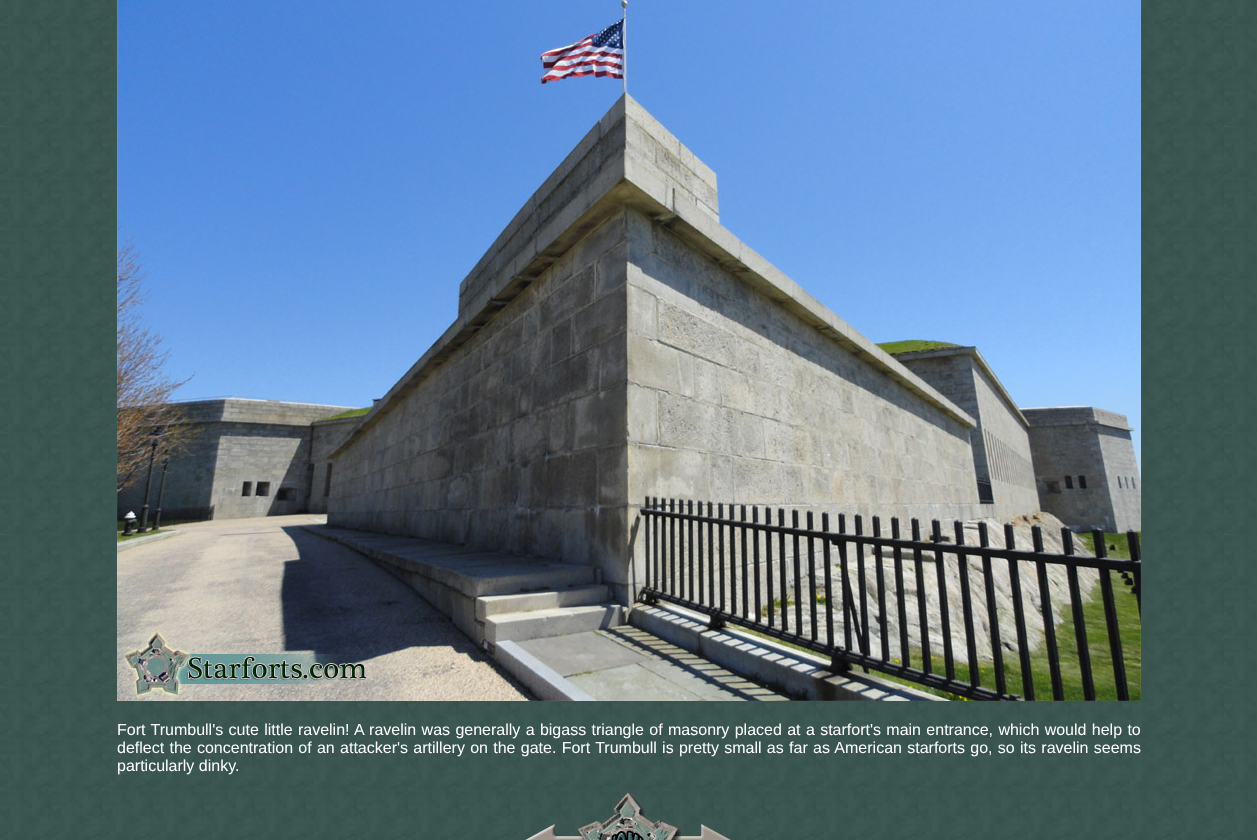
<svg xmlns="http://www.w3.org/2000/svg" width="1257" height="840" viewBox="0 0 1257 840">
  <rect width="100%" height="100%" fill="rgb(255,255,255)"/>
  <image x="0" y="0" width="1257" height="840" href="pic1.png"/>
  <image x="117" y="0" width="1024" height="701" href="pic2.png"/>
  <g font-family="Liberation Sans" font-size="16" fill="rgb(255,255,255)">
    <text>
      <tspan x="117" y="735" word-spacing="0.9">Fort Trumbull's cute little ravelin! A ravelin was generally a bigass triangle of masonry placed at a starfort's main entrance, which would help to</tspan>
      <tspan x="117" y="753" word-spacing="0.85">deflect the concentration of an attacker's artillery on the gate. Fort Trumbull is pretty small as far as American starforts go, so its ravelin seems</tspan>
      <tspan x="117" y="771">particularly dinky.</tspan>
    </text>
  </g>
  <image x="525" y="824" width="53" height="16" href="pic3.png"/>
  <image x="578" y="793" width="103" height="47" href="pic4.png"/>
  <image x="681" y="824" width="50" height="16" href="pic5.png"/>
</svg>
